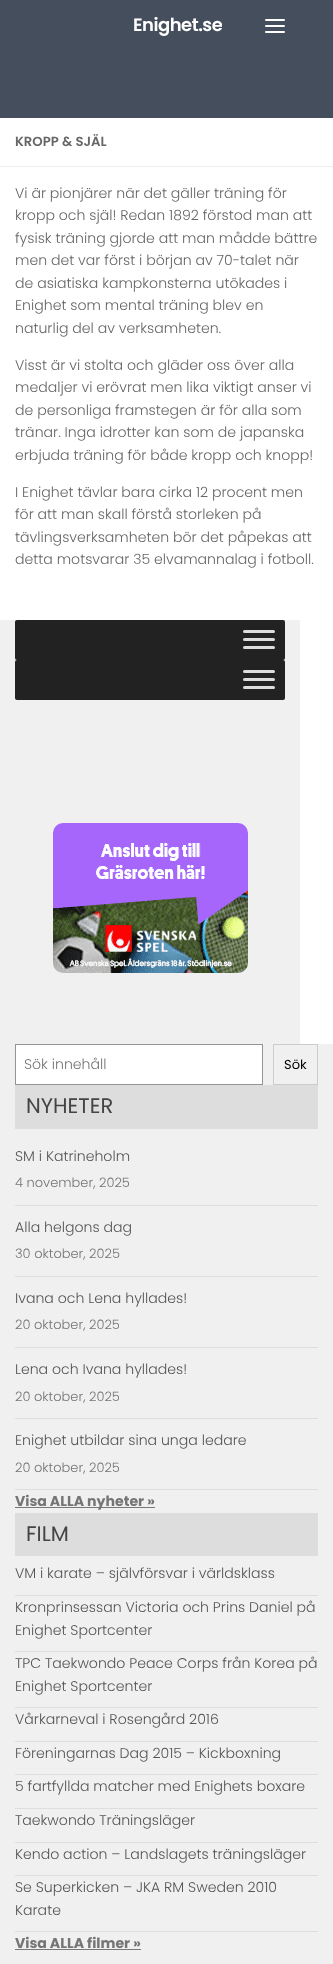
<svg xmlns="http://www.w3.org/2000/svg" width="333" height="1964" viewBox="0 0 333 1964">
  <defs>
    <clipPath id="clip1"><rect x="133" y="0" width="89" height="50"/></clipPath>
  </defs>
  <rect width="100%" height="100%" fill="rgb(255,255,255)"/>
  <rect x="0" y="0" width="333" height="118" fill="rgb(69,78,92)"/>
  <g clip-path="url(#clip1)">
    <text x="133" y="31" font-family="Poppins" font-size="18" font-weight="600" letter-spacing="-0.5" fill="rgb(255,255,255)">Enighet.se</text>
  </g>
  <rect x="265" y="19" width="20" height="2" rx="1" fill="rgb(255,255,255)"/>
  <rect x="265" y="25" width="20" height="2" rx="1" fill="rgb(255,255,255)"/>
  <rect x="265" y="31" width="20" height="2" rx="1" fill="rgb(255,255,255)"/>
  <rect x="0" y="166" width="333" height="1" fill="rgb(238,238,238)"/>
  <text x="15" y="146" font-family="Poppins" font-size="13.25" font-weight="600" fill="rgb(102,102,102)">KROPP &amp; SJÄL</text>
  <g font-family="Poppins" font-size="14.1" font-weight="300" fill="rgb(102,102,102)">
    <text>
      <tspan x="15" y="198">Vi är pionjärer när det gäller träning för</tspan>
      <tspan x="15" y="220">kropp och själ! Redan 1892 förstod man att</tspan>
      <tspan x="15" y="243">fysisk träning gjorde att man mådde bättre</tspan>
      <tspan x="15" y="265">men det var först i början av 70-talet när</tspan>
      <tspan x="15" y="288">de asiatiska kampkonsterna utökades i</tspan>
      <tspan x="15" y="310">Enighet som mental träning blev en</tspan>
      <tspan x="15" y="333">naturlig del av verksamheten.</tspan>
    </text>
    <text>
      <tspan x="15" y="370">Visst är vi stolta och gläder oss över alla</tspan>
      <tspan x="15" y="392">medaljer vi erövrat men lika viktigt anser vi</tspan>
      <tspan x="15" y="415">de personliga framstegen är för alla som</tspan>
      <tspan x="15" y="437">tränar. Inga idrotter kan som de japanska</tspan>
      <tspan x="15" y="460">erbjuda träning för både kropp och knopp!</tspan>
    </text>
    <text>
      <tspan x="15" y="497">I Enighet tävlar bara cirka 12 procent men</tspan>
      <tspan x="15" y="519">för att man skall förstå storleken på</tspan>
      <tspan x="15" y="542">tävlingsverksamheten bör det påpekas att</tspan>
      <tspan x="15" y="564">detta motsvarar 35 elvamannalag i fotboll.</tspan>
    </text>
  </g>
  <rect x="0" y="620" width="300" height="424" fill="rgb(240,240,240)"/>
  <rect x="15" y="620" width="270" height="40" rx="2" fill="rgb(34,34,34)"/>
  <rect x="243" y="630" width="32" height="3" rx="1.5" fill="rgb(221,221,221)"/>
  <rect x="243" y="638" width="32" height="3" rx="1.5" fill="rgb(221,221,221)"/>
  <rect x="243" y="646" width="32" height="3" rx="1.5" fill="rgb(221,221,221)"/>
  <rect x="15" y="660" width="270" height="40" rx="2" fill="rgb(34,34,34)"/>
  <rect x="243" y="670" width="32" height="3" rx="1.5" fill="rgb(221,221,221)"/>
  <rect x="243" y="678" width="32" height="3" rx="1.5" fill="rgb(221,221,221)"/>
  <rect x="243" y="686" width="32" height="3" rx="1.5" fill="rgb(221,221,221)"/>
  <image x="53" y="823" width="195" height="150" href="pic1.png"/>
  <rect x="0" y="1044" width="333" height="920" fill="rgb(240,240,240)"/>
  <rect x="15.5" y="1044.5" width="247" height="40" fill="rgb(255,255,255)" stroke="rgb(148,148,148)"/>
  <text x="24" y="1069" font-family="Poppins" font-size="14.1" font-weight="300" fill="rgb(117,117,117)">Sök innehåll</text>
  <rect x="273.5" y="1044.5" width="44" height="40" fill="none" stroke="rgb(204,204,204)"/>
  <text x="284" y="1069" font-family="Poppins" font-size="13" fill="rgb(0,0,0)">Sök</text>
  <rect x="15" y="1085" width="303" height="44" fill="rgb(221,221,221)"/>
  <text x="26" y="1113" font-family="Poppins" font-size="21" fill="rgb(68,68,68)">NYHETER</text>
  <rect x="15" y="1205" width="303" height="1" fill="rgb(221,221,221)"/>
  <text x="15" y="1161" font-family="Poppins" font-size="14.1" font-weight="300" fill="rgb(85,85,85)">SM i Katrineholm</text>
  <text x="15" y="1187" font-family="Poppins" font-size="13" font-weight="300" fill="rgb(117,117,117)">4 november, 2025</text>
  <rect x="15" y="1276" width="303" height="1" fill="rgb(221,221,221)"/>
  <text x="15" y="1232" font-family="Poppins" font-size="14.1" font-weight="300" fill="rgb(85,85,85)">Alla helgons dag</text>
  <text x="15" y="1258" font-family="Poppins" font-size="13" font-weight="300" fill="rgb(117,117,117)">30 oktober, 2025</text>
  <rect x="15" y="1347" width="303" height="1" fill="rgb(221,221,221)"/>
  <text x="15" y="1303" font-family="Poppins" font-size="14.1" font-weight="300" fill="rgb(85,85,85)">Ivana och Lena hyllades!</text>
  <text x="15" y="1329" font-family="Poppins" font-size="13" font-weight="300" fill="rgb(117,117,117)">20 oktober, 2025</text>
  <rect x="15" y="1418" width="303" height="1" fill="rgb(221,221,221)"/>
  <text x="15" y="1374" font-family="Poppins" font-size="14.1" font-weight="300" fill="rgb(85,85,85)">Lena och Ivana hyllades!</text>
  <text x="15" y="1401" font-family="Poppins" font-size="13" font-weight="300" fill="rgb(117,117,117)">20 oktober, 2025</text>
  <rect x="15" y="1489" width="303" height="1" fill="rgb(221,221,221)"/>
  <text x="15" y="1445" font-family="Poppins" font-size="14.1" font-weight="300" fill="rgb(85,85,85)">Enighet utbildar sina unga ledare</text>
  <text x="15" y="1472" font-family="Poppins" font-size="13" font-weight="300" fill="rgb(117,117,117)">20 oktober, 2025</text>
  <rect x="15" y="1507" width="140" height="1" fill="rgb(119,119,119)"/>
  <text x="15" y="1506" font-family="Poppins" font-size="14.1" font-weight="bold" fill="rgb(117,117,117)">Visa ALLA nyheter »</text>
  <rect x="15" y="1513" width="303" height="43" fill="rgb(221,221,221)"/>
  <text x="26" y="1541" font-family="Poppins" font-size="21" fill="rgb(68,68,68)">FILM</text>
  <rect x="15" y="1595" width="303" height="1" fill="rgb(221,221,221)"/>
  <text x="15" y="1578" font-family="Poppins" font-size="14.1" font-weight="300" fill="rgb(85,85,85)">VM i karate – självförsvar i världsklass</text>
  <rect x="15" y="1651" width="303" height="1" fill="rgb(221,221,221)"/>
  <g font-family="Poppins" font-size="14.1" font-weight="300" fill="rgb(85,85,85)">
    <text>
      <tspan x="15" y="1612">Kronprinsessan Victoria och Prins Daniel på</tspan>
      <tspan x="15" y="1635">Enighet Sportcenter</tspan>
    </text>
  </g>
  <rect x="15" y="1707" width="303" height="1" fill="rgb(221,221,221)"/>
  <g font-family="Poppins" font-size="14.1" font-weight="300" fill="rgb(85,85,85)">
    <text>
      <tspan x="15" y="1668">TPC Taekwondo Peace Corps från Korea på</tspan>
      <tspan x="15" y="1691">Enighet Sportcenter</tspan>
    </text>
  </g>
  <rect x="15" y="1741" width="303" height="1" fill="rgb(221,221,221)"/>
  <text x="15" y="1724" font-family="Poppins" font-size="14.1" font-weight="300" fill="rgb(85,85,85)">Vårkarneval i Rosengård 2016</text>
  <rect x="15" y="1774" width="303" height="1" fill="rgb(221,221,221)"/>
  <text x="15" y="1758" font-family="Poppins" font-size="14.1" font-weight="300" fill="rgb(85,85,85)">Föreningarnas Dag 2015 – Kickboxning</text>
  <rect x="15" y="1808" width="303" height="1" fill="rgb(221,221,221)"/>
  <text x="15" y="1791" font-family="Poppins" font-size="14.1" font-weight="300" fill="rgb(85,85,85)">5 fartfyllda matcher med Enighets boxare</text>
  <rect x="15" y="1842" width="303" height="1" fill="rgb(221,221,221)"/>
  <text x="15" y="1825" font-family="Poppins" font-size="14.1" font-weight="300" fill="rgb(85,85,85)">Taekwondo Träningsläger</text>
  <rect x="15" y="1875" width="303" height="1" fill="rgb(221,221,221)"/>
  <text x="15" y="1859" font-family="Poppins" font-size="14.1" font-weight="300" fill="rgb(85,85,85)">Kendo action – Landslagets träningsläger</text>
  <rect x="15" y="1931" width="303" height="1" fill="rgb(221,221,221)"/>
  <g font-family="Poppins" font-size="14.1" font-weight="300" fill="rgb(85,85,85)">
    <text>
      <tspan x="15" y="1892">Se Superkicken – JKA RM Sweden 2010</tspan>
      <tspan x="15" y="1915">Karate</tspan>
    </text>
  </g>
  <text x="15" y="1948" font-family="Poppins" font-size="14.1" font-weight="bold" fill="rgb(117,117,117)">Visa ALLA filmer »</text>
  <rect x="15" y="1949" width="126" height="1" fill="rgb(119,119,119)"/>
</svg>
